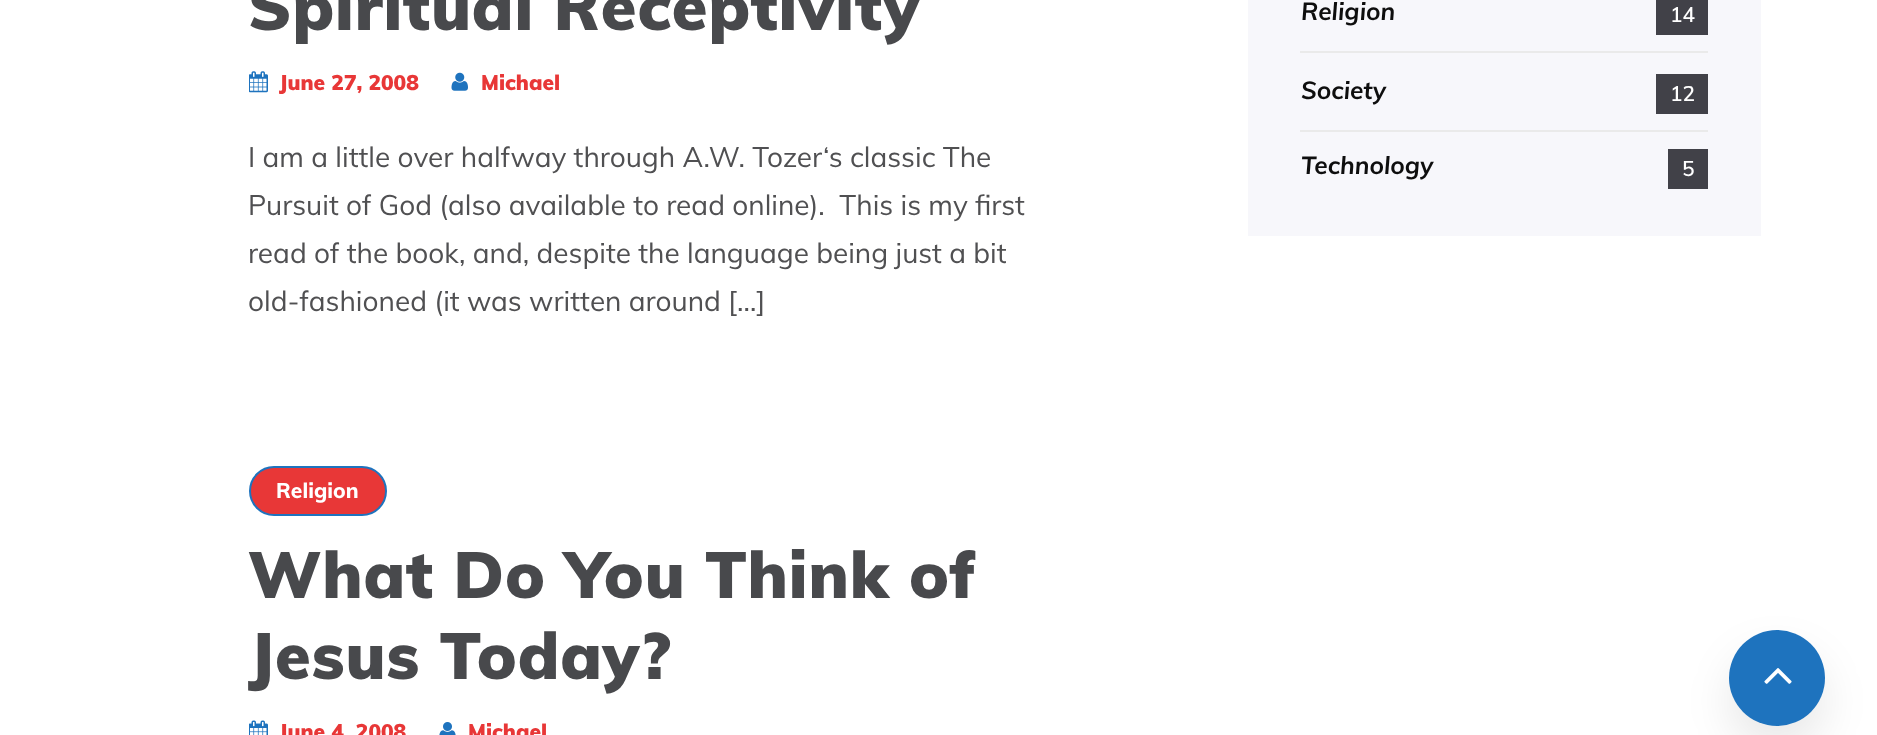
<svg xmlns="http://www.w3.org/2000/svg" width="1877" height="735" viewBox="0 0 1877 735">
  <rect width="100%" height="100%" fill="rgb(255,255,255)"/>
  <text x="248" y="30" font-family="Muli" font-size="64.75" font-weight="900" letter-spacing="0.9" fill="rgb(72,73,76)">Spiritual Receptivity</text>
  <image x="249" y="71" width="19" height="22" href="pic1.png"/>
  <text x="279" y="90" font-family="Muli" font-size="21" font-weight="900" fill="rgb(232,55,55)">June 27, 2008</text>
  <image x="451" y="72" width="17" height="19" href="pic2.png"/>
  <text x="481" y="90" font-family="Muli" font-size="21" font-weight="900" fill="rgb(232,55,55)">Michael</text>
  <g font-family="Muli" font-size="28" fill="rgb(80,80,82)">
    <text xml:space="preserve"><tspan x="248" y="167">I am a little over halfway through A.W. Tozer‘s classic The</tspan><tspan x="248" y="215">Pursuit of God (also available to read online).  This is my first</tspan><tspan x="248" y="263">read of the book, and, despite the language being just a bit</tspan><tspan x="248" y="311">old-fashioned (it was written around […]</tspan></text>
  </g>
  <rect x="250" y="467" width="136" height="48" rx="24" fill="rgb(232,55,55)" stroke="rgb(30,115,190)" stroke-width="2"/>
  <text x="276" y="498" font-family="Muli" font-size="21" font-weight="800" fill="rgb(255,255,255)">Religion</text>
  <g font-family="Muli" font-size="64.75" font-weight="900" letter-spacing="0.9" fill="rgb(72,73,76)">
    <text>
      <tspan x="248" y="598">What Do You Think of</tspan>
      <tspan x="248" y="679">Jesus Today?</tspan>
    </text>
  </g>
  <image x="249" y="720" width="19" height="15" href="pic3.png"/>
  <text x="279" y="739" font-family="Muli" font-size="21" font-weight="900" fill="rgb(232,55,55)">June 4, 2008</text>
  <image x="439" y="722" width="17" height="13" href="pic4.png"/>
  <text x="468" y="739" font-family="Muli" font-size="21" font-weight="900" fill="rgb(232,55,55)">Michael</text>
  <rect x="1248" y="0" width="513" height="236" fill="rgb(247,247,251)"/>
  <rect x="1300" y="51" width="408" height="2" fill="rgb(234,234,234)"/>
  <text x="1301" y="20" font-family="Muli" font-size="24.5" font-weight="bold" font-style="italic" fill="rgb(14,14,14)">Religion</text>
  <rect x="1656" y="0" width="52" height="35" fill="rgb(65,65,72)"/>
  <text x="1670" y="22" font-family="Muli" font-size="21" font-weight="600" fill="rgb(255,255,255)">14</text>
  <rect x="1300" y="130" width="408" height="2" fill="rgb(234,234,234)"/>
  <text x="1301" y="99" font-family="Muli" font-size="24.5" font-weight="bold" font-style="italic" fill="rgb(14,14,14)">Society</text>
  <rect x="1656" y="74" width="52" height="40" fill="rgb(65,65,72)"/>
  <text x="1670" y="101" font-family="Muli" font-size="21" font-weight="600" fill="rgb(255,255,255)">12</text>
  <text x="1301" y="174" font-family="Muli" font-size="24.5" font-weight="bold" font-style="italic" fill="rgb(14,14,14)">Technology</text>
  <rect x="1668" y="149" width="40" height="40" fill="rgb(65,65,72)"/>
  <text x="1682" y="176" font-family="Muli" font-size="21" font-weight="600" fill="rgb(255,255,255)">5</text>
  <rect x="1729" y="653" width="96" height="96" rx="48" fill="rgba(0,0,0,0.09)" filter="blur(22px)"/>
  <circle cx="1777" cy="678" r="48" fill="rgb(30,115,190)"/>
  <image x="1764" y="668" width="28" height="16" href="pic5.png"/>
</svg>
